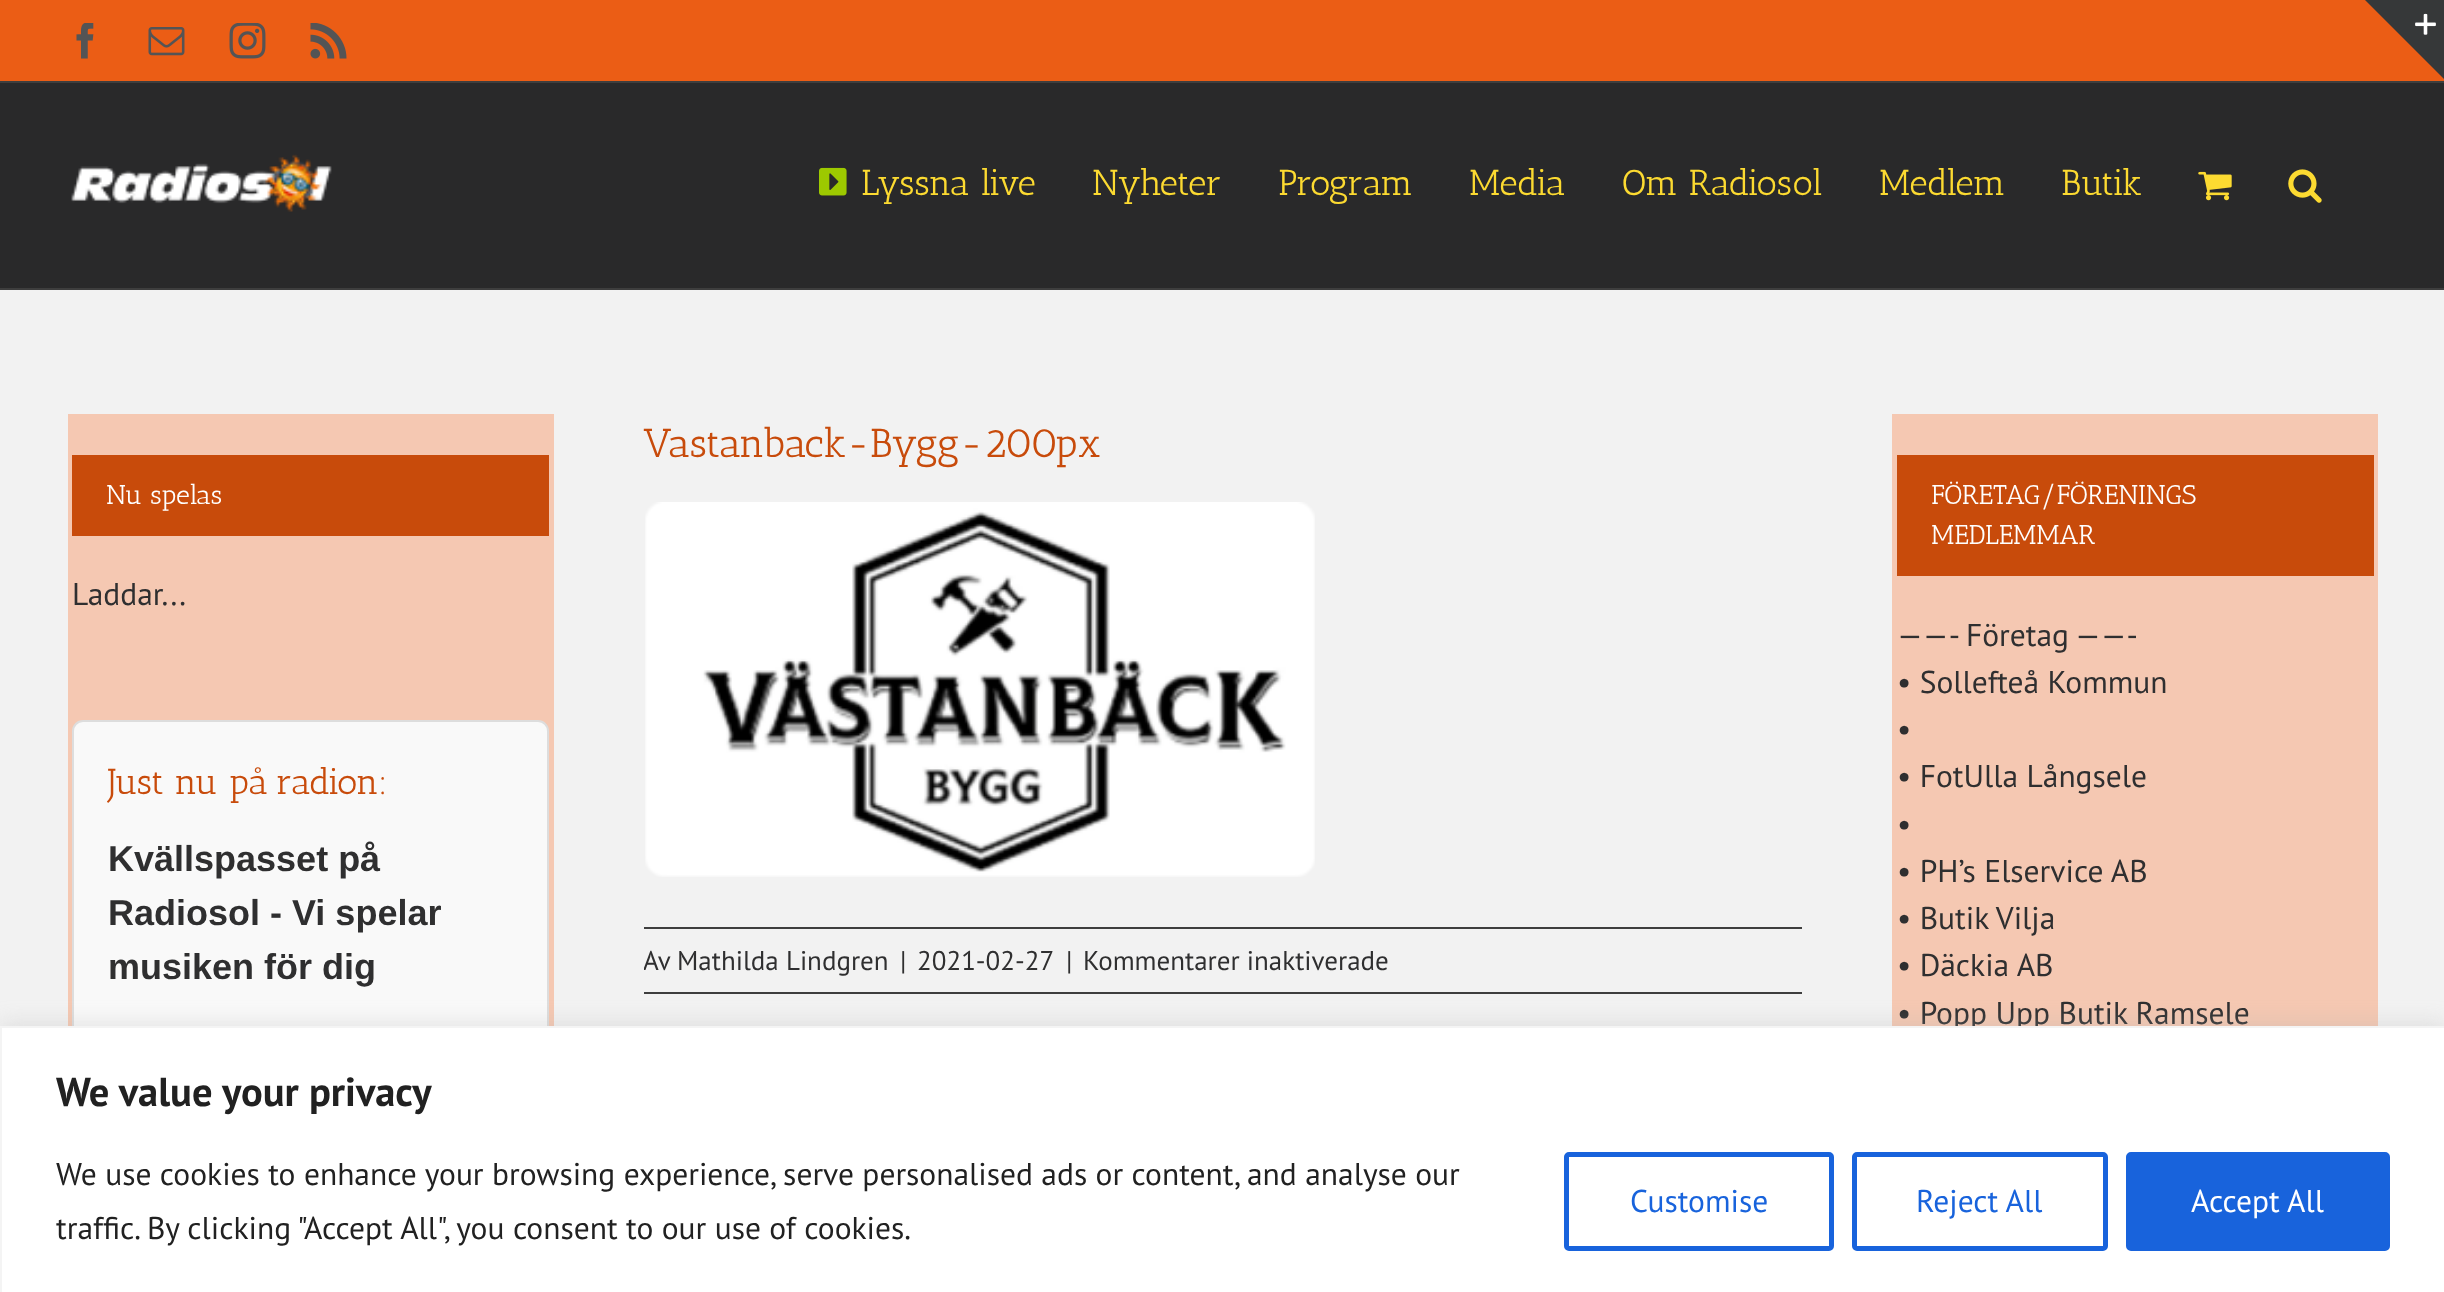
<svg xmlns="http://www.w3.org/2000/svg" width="2444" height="1292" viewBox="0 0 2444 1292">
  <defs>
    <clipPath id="clip1"><rect x="644" y="929" width="1158" height="63"/></clipPath>
  </defs>
  <rect width="100%" height="100%" fill="rgb(242,242,242)"/>
  <rect x="0" y="0" width="2444" height="81" fill="rgb(235,93,21)"/>
  <path d="M2365 0H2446V81Z" fill="rgb(54,56,57)"/>
  <image x="2415" y="13" width="21" height="22" href="pic1.png"/>
  <rect x="0" y="81" width="2444" height="2" fill="rgb(62,62,62)"/>
  <image x="76" y="23" width="18" height="36" href="pic2.png"/>
  <image x="148" y="27" width="37" height="29" href="pic3.png"/>
  <image x="229" y="23" width="37" height="36" href="pic4.png"/>
  <image x="310" y="23" width="37" height="36" href="pic5.png"/>
  <rect x="0" y="83" width="2444" height="205" fill="rgb(41,41,42)"/>
  <rect x="0" y="288" width="2444" height="2" fill="rgb(62,62,62)"/>
  <image x="71" y="154" width="261" height="58" href="pic6.png"/>
  <image x="819" y="167" width="28" height="29" href="pic7.png"/>
  <g font-family="Antic Slab" font-size="36" fill="rgb(252,218,49)">
    <text x="861" y="195">Lyssna live</text>
    <text x="1092" y="195">Nyheter</text>
    <text x="1278" y="195">Program</text>
    <text x="1469" y="195">Media</text>
    <text x="1622" y="195">Om Radiosol</text>
    <text x="1879" y="195">Medlem</text>
    <text x="2061" y="195">Butik</text>
  </g>
  <image x="2198" y="171" width="34" height="30" href="pic8.png"/>
  <image x="2288" y="169" width="34" height="34" href="pic9.png"/>
  <rect x="68" y="414" width="486" height="612" fill="rgb(245,200,178)"/>
  <rect x="72" y="455" width="477" height="81" fill="rgb(200,75,11)"/>
  <text x="106" y="504" font-family="Antic Slab" font-size="27" fill="rgb(255,255,255)">Nu spelas</text>
  <text x="72" y="605" font-family="PT Sans" font-size="31.5" fill="rgb(47,47,48)">Laddar...</text>
  <rect x="73" y="721" width="475" height="320" rx="10" fill="rgb(249,249,249)" stroke="rgb(221,221,221)" stroke-width="2"/>
  <text x="108" y="794" font-family="Antic Slab" font-size="36" fill="rgb(200,75,11)">Just nu på radion:</text>
  <g font-family="Liberation Sans" font-size="36" font-weight="bold" fill="rgb(47,47,48)">
    <text>
      <tspan x="108" y="871">Kvällspasset på</tspan>
      <tspan x="108" y="925">Radiosol - Vi spelar</tspan>
      <tspan x="108" y="979">musiken för dig</tspan>
    </text>
  </g>
  <text x="643" y="457" font-family="Antic Slab" font-size="40.5" fill="rgb(200,75,11)">Vastanback-Bygg-200px</text>
  <image x="645" y="502" width="670" height="375" href="pic10.png"/>
  <rect x="644" y="927" width="1158" height="2" fill="rgb(62,62,62)"/>
  <rect x="644" y="992" width="1158" height="2" fill="rgb(62,62,62)"/>
  <g clip-path="url(#clip1)">
    <text x="643" y="970" font-family="PT Sans" font-size="27" fill="rgb(47,47,48)">Av</text>
  </g>
  <g font-family="PT Sans" font-size="27" fill="rgb(47,47,48)">
    <text x="677" y="970">Mathilda Lindgren</text>
    <text x="900" y="970">|</text>
    <text x="917" y="970">2021-02-27</text>
    <text x="1066" y="970">|</text>
    <text x="1083" y="970">Kommentarer inaktiverade</text>
  </g>
  <rect x="1892" y="414" width="486" height="612" fill="rgb(245,200,178)"/>
  <rect x="1897" y="455" width="477" height="121" fill="rgb(200,75,11)"/>
  <g font-family="Antic Slab" font-size="27" fill="rgb(255,255,255)">
    <text>
      <tspan x="1931" y="504">FÖRETAG/FÖRENINGS</tspan>
      <tspan x="1931" y="544">MEDLEMMAR</tspan>
    </text>
  </g>
  <g font-family="PT Sans" font-size="31.5" fill="rgb(47,47,48)">
    <text>
      <tspan x="1897" y="646">——- Företag ——-</tspan>
      <tspan x="1897" y="693">• Sollefteå Kommun</tspan>
      <tspan x="1897" y="740">•</tspan>
      <tspan x="1897" y="787">• FotUlla Långsele</tspan>
      <tspan x="1897" y="835">•</tspan>
      <tspan x="1897" y="882">• PH’s Elservice AB</tspan>
      <tspan x="1897" y="929">• Butik Vilja</tspan>
      <tspan x="1897" y="976">• Däckia AB</tspan>
      <tspan x="1897" y="1024">• Popp Upp Butik Ramsele</tspan>
    </text>
  </g>
  <rect x="0" y="1024" width="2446" height="268" fill="rgba(172,171,171,0.3)" filter="blur(11px)"/>
  <rect x="1" y="1027" width="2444" height="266" fill="rgb(255,255,255)" stroke="rgb(244,244,244)" stroke-width="2"/>
  <text x="56" y="1106" font-family="PT Sans" font-size="40.5" font-weight="bold" fill="rgb(33,33,33)">We value your privacy</text>
  <g font-family="PT Sans" font-size="31.5" fill="rgb(33,33,33)">
    <text>
      <tspan x="56" y="1185">We use cookies to enhance your browsing experience, serve personalised ads or content, and analyse our</tspan>
      <tspan x="56" y="1239">traffic. By clicking "Accept All", you consent to our use of cookies.</tspan>
    </text>
  </g>
  <rect x="1566.5" y="1154.5" width="265" height="94" rx="2.5" fill="none" stroke="rgb(24,99,220)" stroke-width="5"/>
  <text x="1630" y="1212" font-family="PT Sans" font-size="31.5" fill="rgb(24,99,220)">Customise</text>
  <rect x="1854.5" y="1154.5" width="251" height="94" rx="2.5" fill="none" stroke="rgb(24,99,220)" stroke-width="5"/>
  <text x="1916" y="1212" font-family="PT Sans" font-size="31.5" fill="rgb(24,99,220)">Reject All</text>
  <rect x="2128.5" y="1154.5" width="259" height="94" rx="2.5" fill="rgb(24,99,220)" stroke="rgb(24,99,220)" stroke-width="5"/>
  <text x="2191" y="1212" font-family="PT Sans" font-size="31.5" fill="rgb(255,255,255)">Accept All</text>
</svg>
